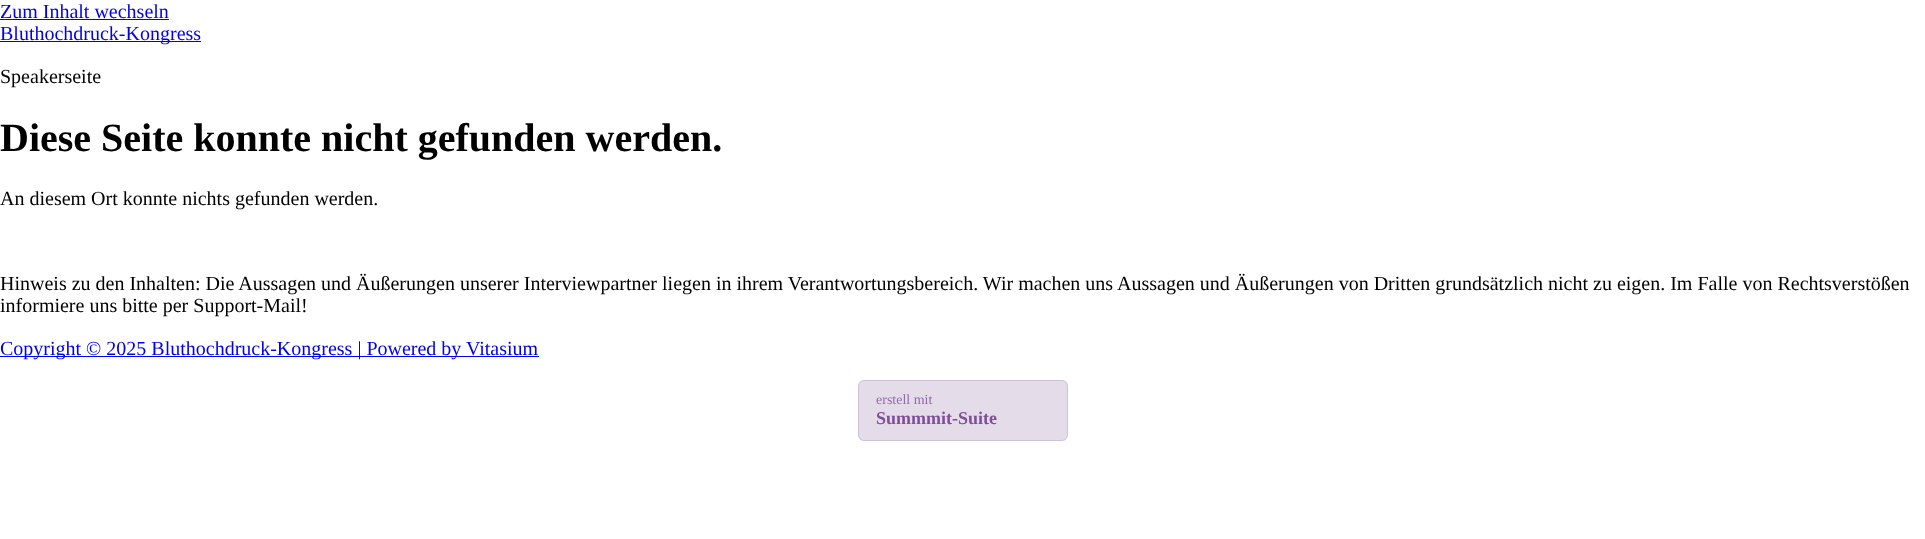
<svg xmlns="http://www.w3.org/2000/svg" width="1925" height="539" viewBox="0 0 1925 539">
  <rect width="100%" height="100%" fill="rgb(255,255,255)"/>
  <text x="0" y="18" font-family="Liberation Serif" font-size="20" fill="rgb(0,0,238)">Zum Inhalt wechseln</text>
  <rect x="0" y="19" width="169" height="1" fill="rgb(0,0,238)"/>
  <rect x="0" y="41" width="201" height="1" fill="rgb(0,0,238)"/>
  <text x="0" y="40" font-family="Liberation Serif" font-size="20" fill="rgb(0,0,238)">Bluthochdruck-Kongress</text>
  <text x="0" y="83" font-family="Liberation Serif" font-size="20" fill="rgb(0,0,0)">Speakerseite</text>
  <text x="0" y="151" font-family="Liberation Serif" font-size="40" font-weight="bold" fill="rgb(0,0,0)">Diese Seite konnte nicht gefunden werden.</text>
  <g font-family="Liberation Serif" font-size="20" fill="rgb(0,0,0)">
    <text x="0" y="205">An diesem Ort konnte nichts gefunden werden.</text>
    <text>
      <tspan x="0" y="290">Hinweis zu den Inhalten: Die Aussagen und Äußerungen unserer Interviewpartner liegen in ihrem Verantwortungsbereich. Wir machen uns Aussagen und Äußerungen von Dritten grundsätzlich nicht zu eigen. Im Falle von Rechtsverstößen</tspan>
      <tspan x="0" y="312">informiere uns bitte per Support-Mail!</tspan>
    </text>
  </g>
  <rect x="0" y="356" width="539" height="1" fill="rgb(0,0,238)"/>
  <text x="0" y="355" font-family="Liberation Serif" font-size="20" fill="rgb(0,0,238)">Copyright © 2025 Bluthochdruck-Kongress | Powered by Vitasium</text>
  <rect x="858" y="380" width="210" height="61" rx="6" fill="rgb(229,220,234)"/>
  <rect x="858.5" y="380.5" width="209" height="60" rx="5.5" fill="none" stroke="rgba(127,78,152,0.2)"/>
  <text x="876" y="404" font-family="Liberation Serif" font-size="14" fill="rgb(147,106,168)">erstell mit</text>
  <text x="876" y="424" font-family="Liberation Serif" font-size="18" font-weight="bold" fill="rgb(127,78,152)">Summmit-Suite</text>
</svg>
